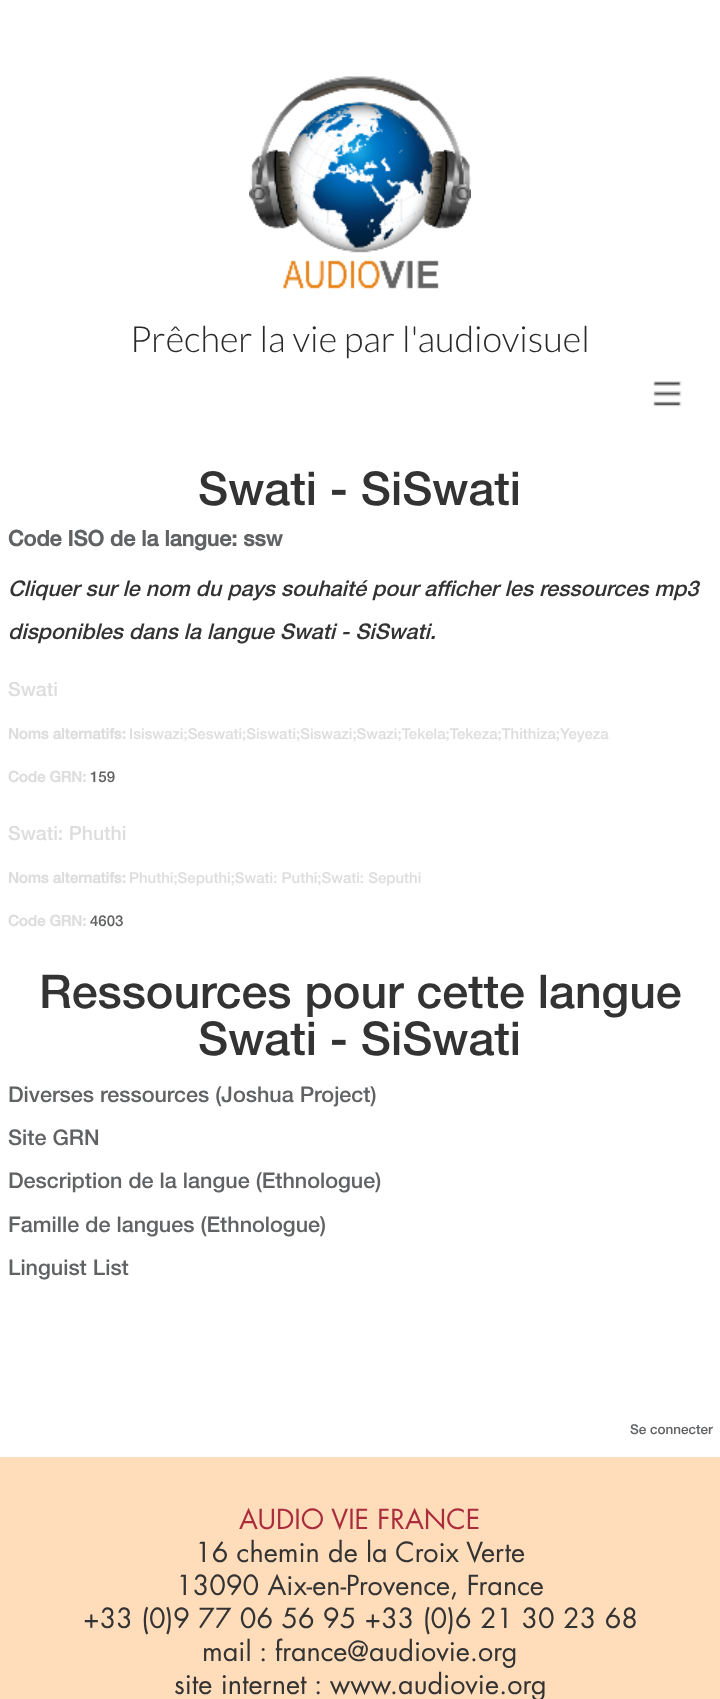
<svg xmlns="http://www.w3.org/2000/svg" width="720" height="1699" viewBox="0 0 720 1699">
  <rect width="100%" height="100%" fill="rgb(255,255,255)"/>
  <image x="249" y="76" width="222" height="213" href="pic1.png"/>
  <text x="130" y="352" font-family="Lato" font-size="36" font-weight="300" fill="rgb(41,41,41)">Prêcher la vie par l'audiovisuel</text>
  <image x="653" y="381" width="29" height="26" href="pic2.png"/>
  <text x="198" y="505" font-family="Helvetica" font-size="46.5" font-weight="500" fill="rgb(51,51,51)">Swati - SiSwati</text>
  <text x="8" y="546" font-family="Helvetica" font-size="21.6" font-weight="bold" fill="rgb(96,98,100)">Code ISO de la langue: ssw</text>
  <g font-family="Helvetica" font-size="21.6" font-weight="500" font-style="italic" fill="rgb(51,51,51)">
    <text>
      <tspan x="8" y="596">Cliquer sur le nom du pays souhaité pour afficher les ressources mp3</tspan>
      <tspan x="8" y="639">disponibles dans la langue Swati - SiSwati.</tspan>
    </text>
  </g>
  <text x="8" y="696" font-family="Helvetica" font-size="19.5" font-weight="500" fill="rgb(221,221,221)">Swati</text>
  <text x="8" y="739" font-family="Helvetica" font-size="15" font-weight="bold" fill="rgb(221,221,221)">Noms alternatifs:</text>
  <text x="129" y="739" font-family="Helvetica" font-size="15" font-weight="500" fill="rgb(221,221,221)">Isiswazi;Seswati;Siswati;Siswazi;Swazi;Tekela;Tekeza;Thithiza;Yeyeza</text>
  <text x="8" y="782" font-family="Helvetica" font-size="15" font-weight="bold" fill="rgb(221,221,221)">Code GRN:</text>
  <text x="90" y="782" font-family="Helvetica" font-size="15" font-weight="500" fill="rgb(96,98,100)">159</text>
  <text x="8" y="840" font-family="Helvetica" font-size="19.5" font-weight="500" fill="rgb(221,221,221)">Swati: Phuthi</text>
  <text x="8" y="883" font-family="Helvetica" font-size="15" font-weight="bold" fill="rgb(221,221,221)">Noms alternatifs:</text>
  <text x="129" y="883" font-family="Helvetica" font-size="15" font-weight="500" fill="rgb(221,221,221)">Phuthi;Seputhi;Swati: Puthi;Swati: Seputhi</text>
  <text x="8" y="926" font-family="Helvetica" font-size="15" font-weight="bold" fill="rgb(221,221,221)">Code GRN:</text>
  <text x="90" y="926" font-family="Helvetica" font-size="15" font-weight="500" fill="rgb(96,98,100)">4603</text>
  <g font-family="Helvetica" font-size="46.5" font-weight="500" fill="rgb(51,51,51)">
    <text x="39" y="1008">Ressources pour cette langue</text>
    <text x="198" y="1055">Swati - SiSwati</text>
  </g>
  <g font-family="Helvetica" font-size="21.6" font-weight="500" fill="rgb(96,98,100)">
    <text>
      <tspan x="8" y="1102">Diverses ressources (Joshua Project)</tspan>
      <tspan x="8" y="1145">Site GRN</tspan>
      <tspan x="8" y="1188">Description de la langue (Ethnologue)</tspan>
    </text>
    <text>
      <tspan x="8" y="1232">Famille de langues (Ethnologue)</tspan>
      <tspan x="8" y="1275">Linguist List</tspan>
    </text>
  </g>
  <text x="630" y="1434" font-family="Helvetica" font-size="13.5" font-weight="500" fill="rgb(96,98,100)">Se connecter</text>
  <rect x="0" y="1457" width="720" height="242" fill="rgb(255,220,186)"/>
  <text x="239" y="1529" font-family="futura" font-size="27" fill="rgb(170,45,61)">AUDIO VIE FRANCE</text>
  <g font-family="futura" font-size="27" fill="rgb(51,51,51)">
    <text x="195" y="1562">16 chemin de la Croix Verte</text>
    <text x="176" y="1595">13090 Aix-en-Provence, France</text>
    <text x="83" y="1628">+33 (0)9 77 06 56 95 +33 (0)6 21 30 23 68</text>
    <text x="202" y="1661">mail : france@audiovie.org</text>
    <text x="174" y="1694">site internet : www.audiovie.org</text>
  </g>
</svg>
